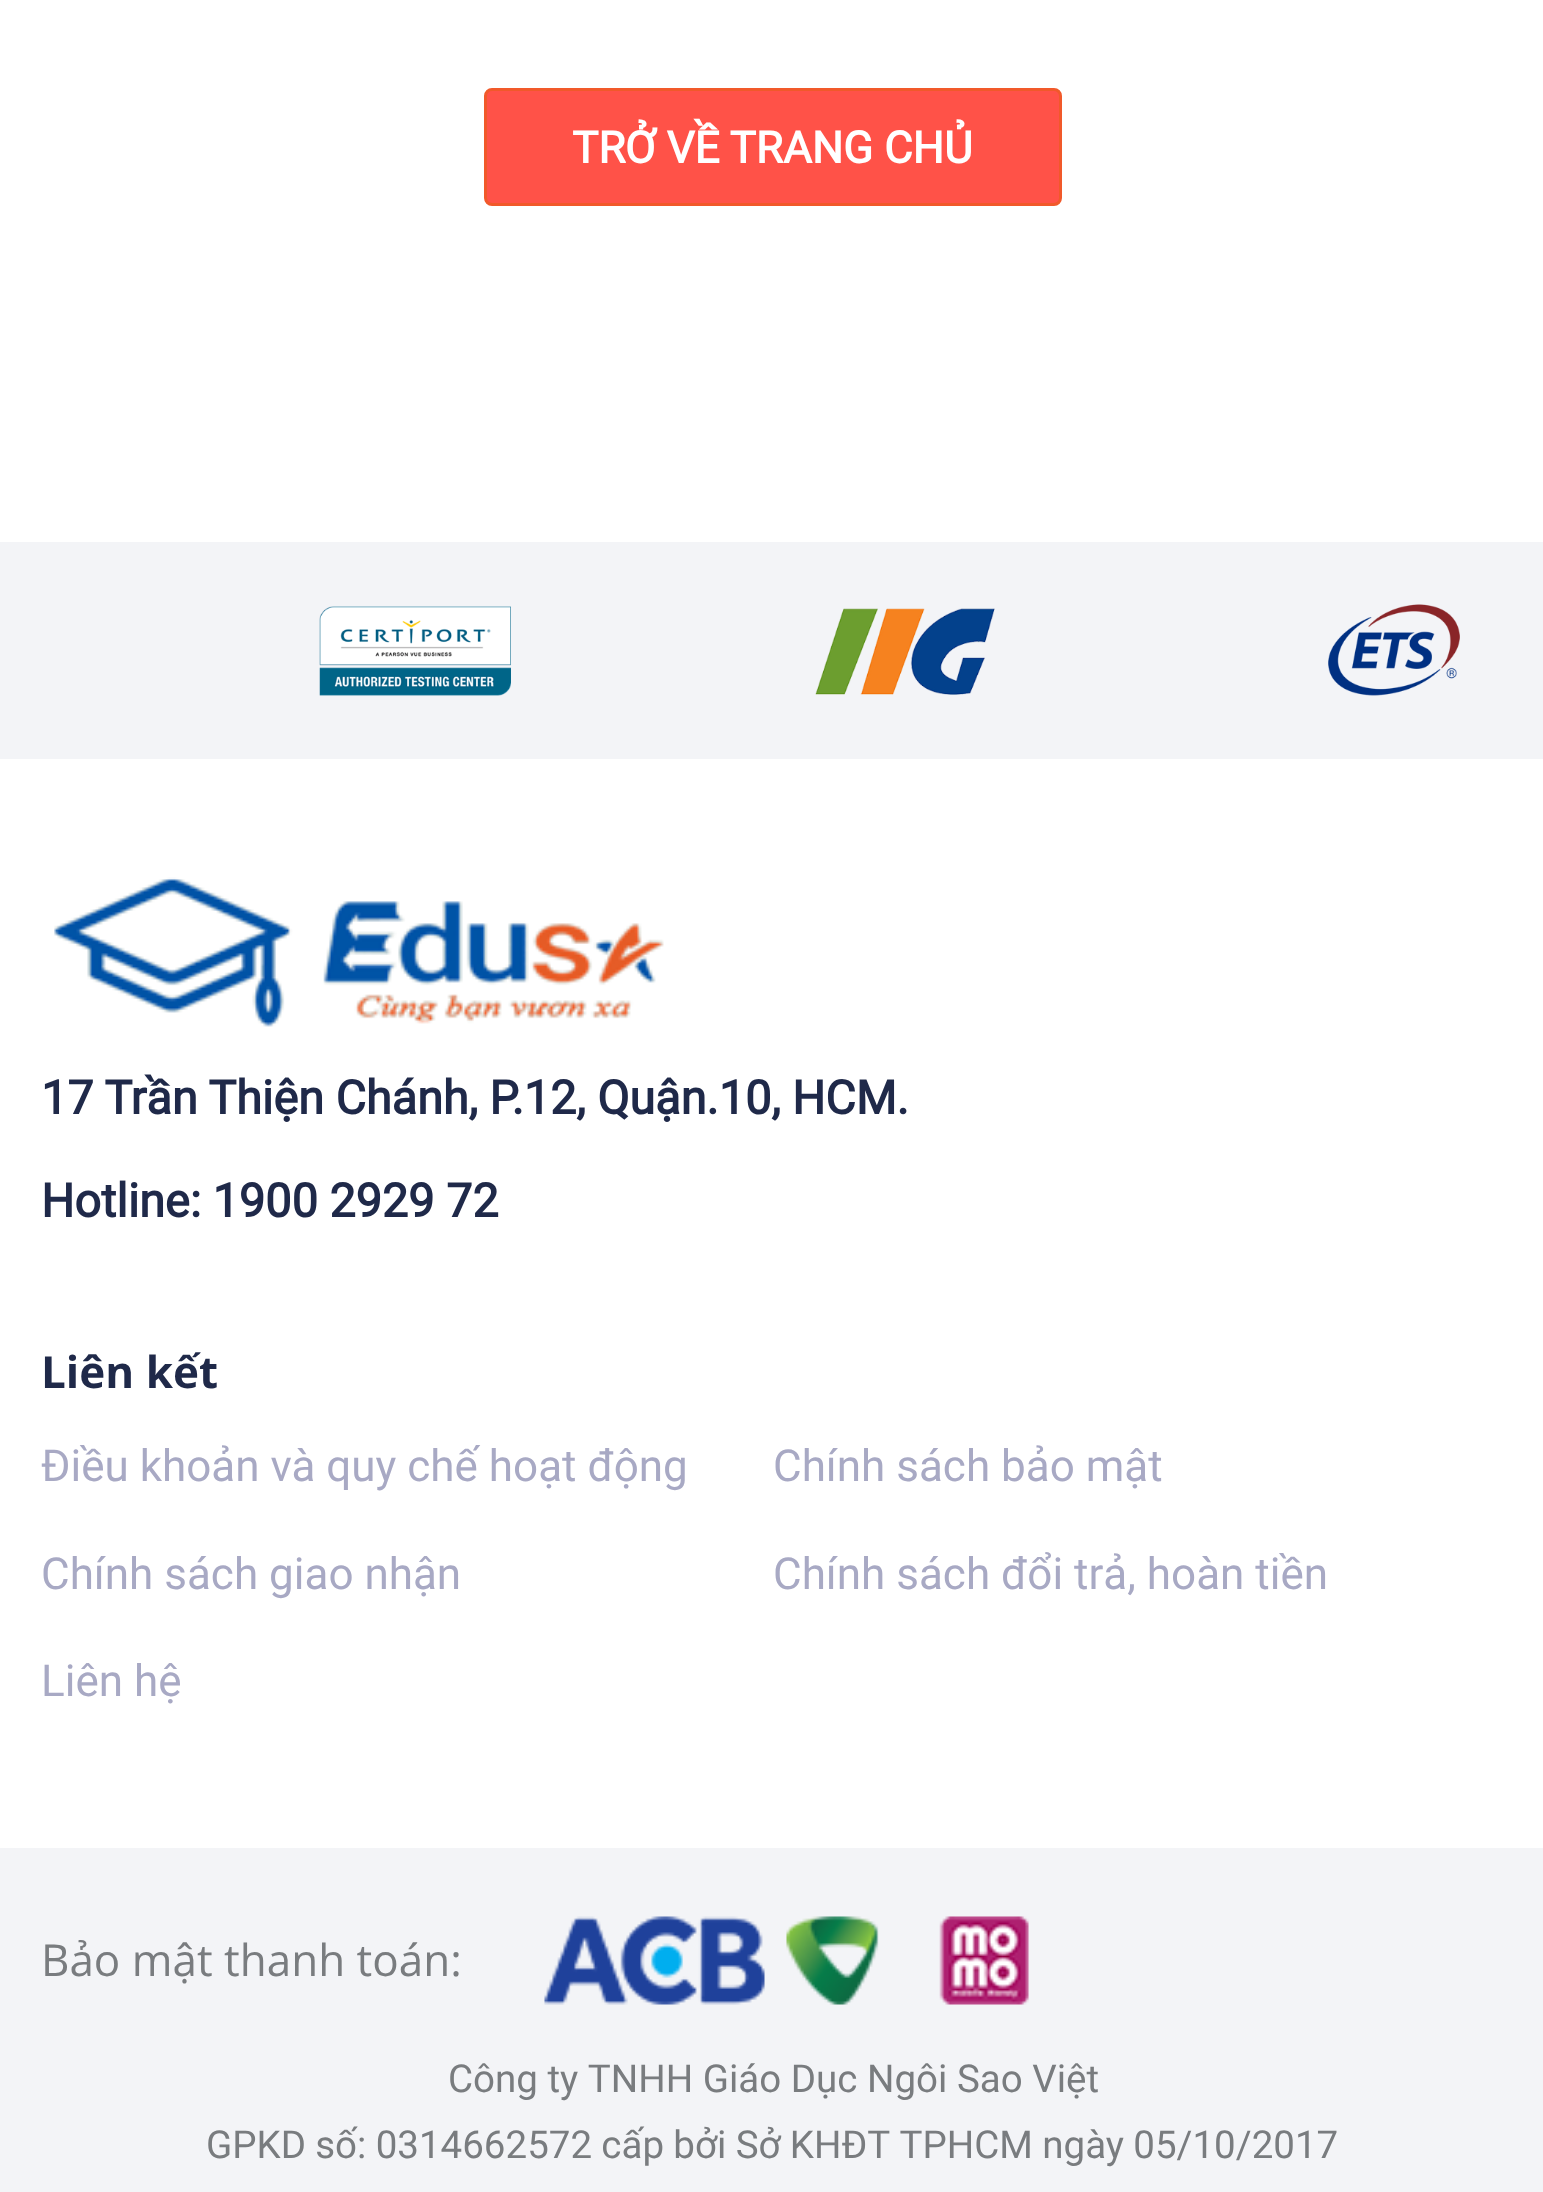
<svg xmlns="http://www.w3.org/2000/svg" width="1543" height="2192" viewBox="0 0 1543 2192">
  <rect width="100%" height="100%" fill="rgb(255,255,255)"/>
  <rect x="485.5" y="89.5" width="575" height="115" rx="6.5" fill="rgb(255,82,72)" stroke="rgb(241,89,42)" stroke-width="3"/>
  <text x="572" y="163" font-family="Roboto" font-size="44" font-weight="bold" fill="rgb(255,255,255)">TRỞ VỀ TRANG CHỦ</text>
  <rect x="0" y="542" width="1543" height="217" fill="rgb(243,244,247)"/>
  <image x="319" y="606" width="192" height="90" href="pic1.png"/>
  <image x="815" y="608" width="180" height="87" href="pic2.png"/>
  <image x="1328" y="604" width="132" height="92" href="pic3.png"/>
  <image x="54" y="877" width="610" height="150" href="pic4.png"/>
  <g font-family="Roboto" font-size="46.75" font-weight="bold" fill="rgb(31,41,73)">
    <text x="41" y="1114">17 Trần Thiện Chánh, P.12, Quận.10, HCM.</text>
    <text x="41" y="1217">Hotline: 1900 2929 72</text>
  </g>
  <text x="41" y="1388" font-family="Open Sans" font-size="44" font-weight="bold" fill="rgb(31,41,73)">Liên kết</text>
  <g font-family="Roboto" font-size="44" fill="rgb(168,169,196)">
    <text x="41" y="1481">Điều khoản và quy chế hoạt động</text>
    <text x="773" y="1481">Chính sách bảo mật</text>
    <text x="41" y="1589">Chính sách giao nhận</text>
    <text x="773" y="1589">Chính sách đổi trả, hoàn tiền</text>
    <text x="41" y="1696">Liên hệ</text>
  </g>
  <rect x="0" y="1848" width="1543" height="344" fill="rgb(243,244,247)"/>
  <text x="41" y="1976" font-family="Open Sans" font-size="44" fill="rgb(121,124,127)">Bảo mật thanh toán:</text>
  <image x="544" y="1916" width="221" height="89" href="pic5.png"/>
  <image x="786" y="1916" width="243" height="89" href="pic6.png"/>
  <g font-family="Roboto" font-size="38.5" fill="rgb(121,124,127)">
    <text x="448" y="2092">Công ty TNHH Giáo Dục Ngôi Sao Việt</text>
    <text x="206" y="2158" word-spacing="-0.25">GPKD số: 0314662572 cấp bởi Sở KHĐT TPHCM ngày 05/10/2017</text>
  </g>
</svg>
